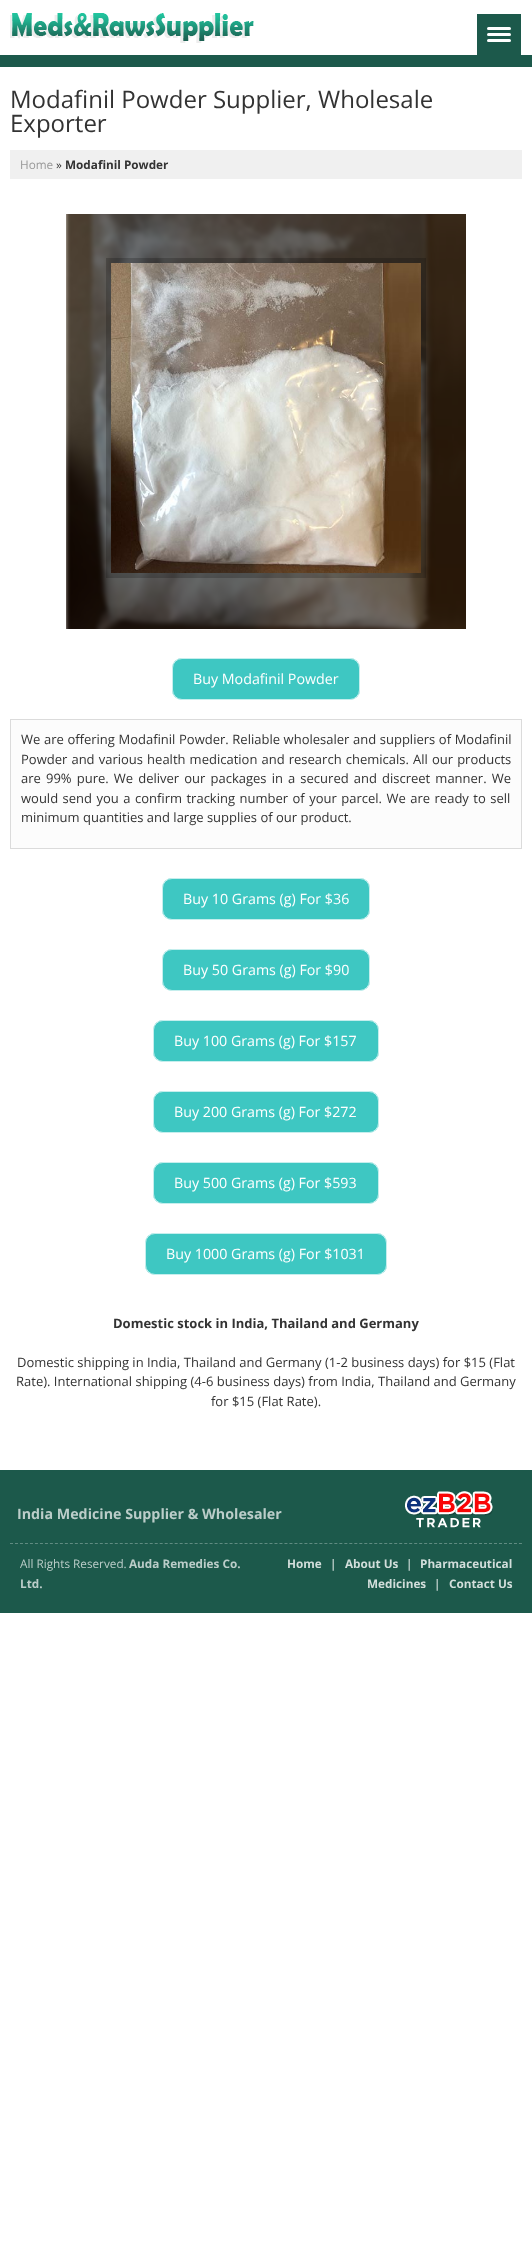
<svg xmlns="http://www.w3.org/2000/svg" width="532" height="2268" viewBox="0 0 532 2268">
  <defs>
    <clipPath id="clip1"><rect x="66" y="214" width="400" height="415"/></clipPath>
  </defs>
  <rect width="100%" height="100%" fill="rgb(255,255,255)"/>
  <image x="10" y="13" width="244" height="30" href="pic1.png"/>
  <rect x="0" y="55" width="532" height="12" fill="rgb(28,89,75)"/>
  <rect x="477" y="14" width="44" height="41" fill="rgb(28,89,75)"/>
  <rect x="487" y="27" width="24" height="3" rx="1.5" fill="rgb(255,255,255)"/>
  <rect x="487" y="33" width="24" height="3" rx="1.5" fill="rgb(255,255,255)"/>
  <rect x="487" y="39" width="24" height="3" rx="1.5" fill="rgb(255,255,255)"/>
  <g font-family="Open Sans" font-size="24" fill="rgb(51,51,51)">
    <text>
      <tspan x="10" y="108">Modafinil Powder Supplier, Wholesale</tspan>
      <tspan x="10" y="132">Exporter</tspan>
    </text>
  </g>
  <rect x="10" y="150" width="512" height="29" fill="rgb(240,240,240)"/>
  <text x="20" y="169" font-family="Open Sans" font-size="11.75" fill="rgb(153,153,153)">Home</text>
  <text x="56" y="169" font-family="Open Sans" font-size="11.75" fill="rgb(51,51,51)">»</text>
  <text x="65" y="169" font-family="Open Sans" font-size="11.75" font-weight="bold" fill="rgb(51,51,51)">Modafinil Powder</text>
  <image x="66" y="214" width="400" height="415" href="pic2.png"/>
  <g clip-path="url(#clip1)">
    <rect x="66" y="204" width="410" height="435" fill="rgba(0,0,0,0.5)" filter="blur(2px)"/>
  </g>
  <rect x="108.5" y="260.5" width="315" height="315" fill="none" stroke="rgba(0,0,0,0.2)" stroke-width="5"/>
  <image x="111" y="263" width="310" height="310" href="pic3.png"/>
  <rect x="172" y="658" width="188" height="42" rx="10" fill="rgb(62,199,194)"/>
  <rect x="172.5" y="658.5" width="187" height="41" rx="9.5" fill="none" stroke="rgba(255,255,255,0.7)"/>
  <text x="193" y="684" font-family="Open Sans" font-size="14.25" fill="rgb(255,255,255)">Buy Modafinil Powder</text>
  <rect x="10.5" y="719.5" width="511" height="129" fill="rgb(252,252,252)" stroke="rgb(219,219,219)"/>
  <g font-family="Open Sans" font-size="13" fill="rgb(51,51,51)">
    <text>
      <tspan x="21" y="744" word-spacing="0.25">We are offering Modafinil Powder. Reliable wholesaler and suppliers of Modafinil</tspan>
      <tspan x="21" y="764" word-spacing="0.75">Powder and various health medication and research chemicals. All our products</tspan>
      <tspan x="21" y="783" word-spacing="1.75">are 99% pure. We deliver our packages in a secured and discreet manner. We</tspan>
      <tspan x="21" y="803" word-spacing="1.1">would send you a confirm tracking number of your parcel. We are ready to sell</tspan>
      <tspan x="21" y="822">minimum quantities and large supplies of our product.</tspan>
    </text>
  </g>
  <rect x="162" y="878" width="208" height="42" rx="10" fill="rgb(62,199,194)"/>
  <rect x="162.5" y="878.5" width="207" height="41" rx="9.5" fill="none" stroke="rgba(255,255,255,0.7)"/>
  <text x="183" y="904" font-family="Open Sans" font-size="14.25" fill="rgb(255,255,255)">Buy 10 Grams (g) For $36</text>
  <rect x="162" y="949" width="208" height="42" rx="10" fill="rgb(62,199,194)"/>
  <rect x="162.5" y="949.5" width="207" height="41" rx="9.5" fill="none" stroke="rgba(255,255,255,0.7)"/>
  <text x="183" y="975" font-family="Open Sans" font-size="14.25" fill="rgb(255,255,255)">Buy 50 Grams (g) For $90</text>
  <rect x="153" y="1020" width="226" height="42" rx="10" fill="rgb(62,199,194)"/>
  <rect x="153.5" y="1020.5" width="225" height="41" rx="9.5" fill="none" stroke="rgba(255,255,255,0.7)"/>
  <text x="174" y="1046" font-family="Open Sans" font-size="14.25" fill="rgb(255,255,255)">Buy 100 Grams (g) For $157</text>
  <rect x="153" y="1091" width="226" height="42" rx="10" fill="rgb(62,199,194)"/>
  <rect x="153.5" y="1091.5" width="225" height="41" rx="9.5" fill="none" stroke="rgba(255,255,255,0.7)"/>
  <text x="174" y="1117" font-family="Open Sans" font-size="14.25" fill="rgb(255,255,255)">Buy 200 Grams (g) For $272</text>
  <rect x="153" y="1162" width="226" height="42" rx="10" fill="rgb(62,199,194)"/>
  <rect x="153.5" y="1162.5" width="225" height="41" rx="9.5" fill="none" stroke="rgba(255,255,255,0.7)"/>
  <text x="174" y="1188" font-family="Open Sans" font-size="14.25" fill="rgb(255,255,255)">Buy 500 Grams (g) For $593</text>
  <rect x="145" y="1233" width="242" height="42" rx="10" fill="rgb(62,199,194)"/>
  <rect x="145.5" y="1233.5" width="241" height="41" rx="9.5" fill="none" stroke="rgba(255,255,255,0.7)"/>
  <text x="166" y="1259" font-family="Open Sans" font-size="14.25" fill="rgb(255,255,255)">Buy 1000 Grams (g) For $1031</text>
  <text x="113" y="1328" font-family="Open Sans" font-size="13" font-weight="bold" fill="rgb(51,51,51)">Domestic stock in India, Thailand and Germany</text>
  <g font-family="Open Sans" font-size="13" fill="rgb(51,51,51)">
    <text x="17" y="1367">Domestic shipping in India, Thailand and Germany (1-2 business days) for $15 (Flat</text>
    <text x="16" y="1386">Rate). International shipping (4-6 business days) from India, Thailand and Germany</text>
    <text x="211" y="1406">for $15 (Flat Rate).</text>
  </g>
  <rect x="0" y="1470" width="532" height="143" fill="rgb(28,89,75)"/>
  <text x="17" y="1519" font-family="Open Sans" font-size="14.25" font-weight="bold" fill="rgb(187,205,201)">India Medicine Supplier &amp; Wholesaler</text>
  <image x="405" y="1491" width="88" height="37" href="pic4.png"/>
  <path d="M10 1543.5H522" fill="none" stroke="rgb(96,139,129)" stroke-dasharray="3 1.99"/>
  <text x="20" y="1568" font-family="Open Sans" font-size="11.75" fill="rgb(187,205,201)">All Rights Reserved.</text>
  <g font-family="Open Sans" font-size="11.75" font-weight="bold" fill="rgb(187,205,201)">
    <text x="129" y="1568">Auda Remedies Co.</text>
    <text x="20" y="1588">Ltd.</text>
  </g>
  <text x="287" y="1568" font-family="Open Sans" font-size="11.75" font-weight="bold" fill="rgb(210,222,219)">Home</text>
  <text x="330" y="1568" font-family="Open Sans" font-size="11.75" font-weight="bold" fill="rgb(187,205,201)">|</text>
  <text x="345" y="1568" font-family="Open Sans" font-size="11.75" font-weight="bold" fill="rgb(210,222,219)">About Us</text>
  <text x="406" y="1568" font-family="Open Sans" font-size="11.75" font-weight="bold" fill="rgb(187,205,201)">|</text>
  <g font-family="Open Sans" font-size="11.75" font-weight="bold" fill="rgb(210,222,219)">
    <text x="420" y="1568">Pharmaceutical</text>
    <text x="367" y="1588">Medicines</text>
  </g>
  <text x="434" y="1588" font-family="Open Sans" font-size="11.75" font-weight="bold" fill="rgb(187,205,201)">|</text>
  <text x="449" y="1588" font-family="Open Sans" font-size="11.75" font-weight="bold" fill="rgb(210,222,219)">Contact Us</text>
</svg>
